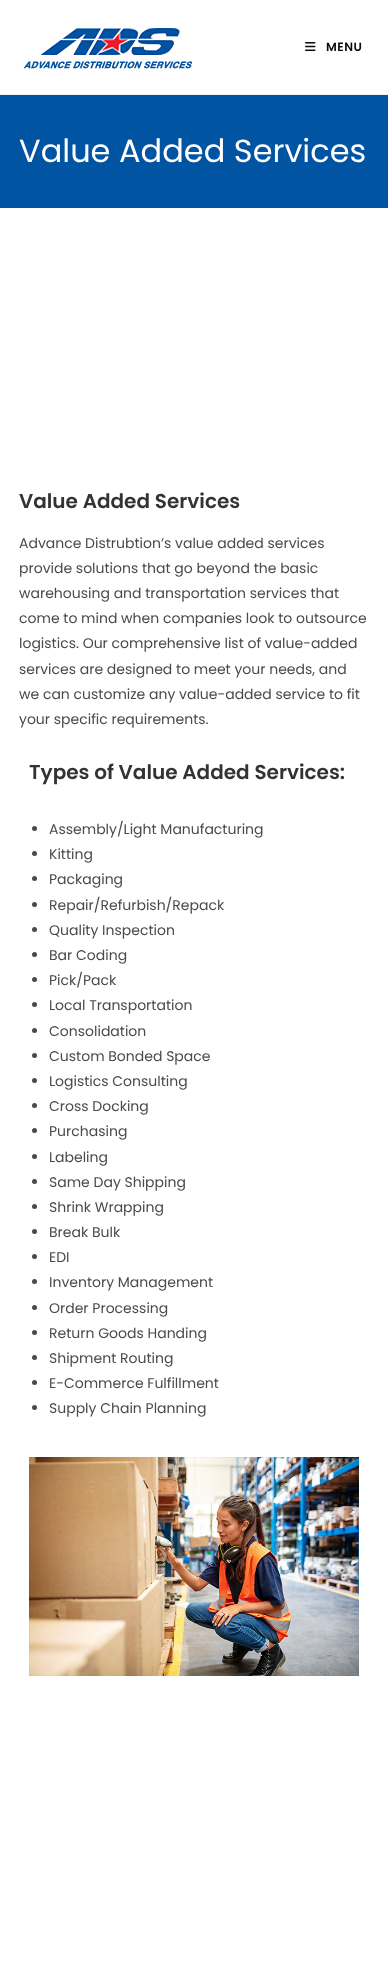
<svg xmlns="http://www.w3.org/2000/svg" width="388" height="1980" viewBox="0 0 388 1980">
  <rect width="100%" height="100%" fill="rgb(255,255,255)"/>
  <rect x="0" y="94" width="388" height="1" fill="rgb(241,241,241)"/>
  <image x="23" y="28" width="169" height="41" href="pic1.png"/>
  <image x="305" y="42" width="11" height="9" href="pic2.png"/>
  <text x="326" y="51" font-family="Poppins" font-size="12" font-weight="600" letter-spacing="0.5" fill="rgb(10,10,10)">MENU</text>
  <rect x="0" y="95" width="388" height="113" fill="rgb(0,84,161)"/>
  <text x="19" y="162" font-family="Poppins" font-size="32" fill="rgb(255,255,255)">Value Added Services</text>
  <text x="19" y="508" font-family="Poppins" font-size="20" font-weight="600" fill="rgb(51,51,51)">Value Added Services</text>
  <g font-family="Poppins" font-size="14" fill="rgb(74,74,74)">
    <text>
      <tspan x="19" y="548">Advance Distrubtion’s value added services</tspan>
      <tspan x="19" y="573">provide solutions that go beyond the basic</tspan>
      <tspan x="19" y="598">warehousing and transportation services that</tspan>
      <tspan x="19" y="623">come to mind when companies look to outsource</tspan>
      <tspan x="19" y="648">logistics. Our comprehensive list of value-added</tspan>
      <tspan x="19" y="674">services are designed to meet your needs, and</tspan>
      <tspan x="19" y="699">we can customize any value-added service to fit</tspan>
      <tspan x="19" y="724">your specific requirements.</tspan>
    </text>
  </g>
  <text x="29" y="779" font-family="Poppins" font-size="20" font-weight="600" fill="rgb(51,51,51)">Types of Value Added Services:</text>
  <circle cx="34.5" cy="828.5" r="2.5" fill="rgb(74,74,74)"/>
  <text x="49" y="834" font-family="Poppins" font-size="14" fill="rgb(74,74,74)">Assembly/Light Manufacturing</text>
  <circle cx="34.5" cy="853.5" r="2.5" fill="rgb(74,74,74)"/>
  <text x="49" y="859" font-family="Poppins" font-size="14" fill="rgb(74,74,74)">Kitting</text>
  <circle cx="34.5" cy="878.5" r="2.5" fill="rgb(74,74,74)"/>
  <text x="49" y="884" font-family="Poppins" font-size="14" fill="rgb(74,74,74)">Packaging</text>
  <circle cx="34.5" cy="904.5" r="2.5" fill="rgb(74,74,74)"/>
  <text x="49" y="910" font-family="Poppins" font-size="14" fill="rgb(74,74,74)">Repair/Refurbish/Repack</text>
  <circle cx="34.5" cy="929.5" r="2.5" fill="rgb(74,74,74)"/>
  <text x="49" y="935" font-family="Poppins" font-size="14" fill="rgb(74,74,74)">Quality Inspection</text>
  <circle cx="34.5" cy="954.5" r="2.5" fill="rgb(74,74,74)"/>
  <text x="49" y="960" font-family="Poppins" font-size="14" fill="rgb(74,74,74)">Bar Coding</text>
  <circle cx="34.5" cy="979.5" r="2.5" fill="rgb(74,74,74)"/>
  <text x="49" y="985" font-family="Poppins" font-size="14" fill="rgb(74,74,74)">Pick/Pack</text>
  <circle cx="34.5" cy="1004.5" r="2.5" fill="rgb(74,74,74)"/>
  <text x="49" y="1010" font-family="Poppins" font-size="14" fill="rgb(74,74,74)">Local Transportation</text>
  <circle cx="34.5" cy="1030.5" r="2.5" fill="rgb(74,74,74)"/>
  <text x="49" y="1036" font-family="Poppins" font-size="14" fill="rgb(74,74,74)">Consolidation</text>
  <circle cx="34.5" cy="1055.5" r="2.5" fill="rgb(74,74,74)"/>
  <text x="49" y="1061" font-family="Poppins" font-size="14" fill="rgb(74,74,74)">Custom Bonded Space</text>
  <circle cx="34.5" cy="1080.5" r="2.5" fill="rgb(74,74,74)"/>
  <text x="49" y="1086" font-family="Poppins" font-size="14" fill="rgb(74,74,74)">Logistics Consulting</text>
  <circle cx="34.5" cy="1105.5" r="2.5" fill="rgb(74,74,74)"/>
  <text x="49" y="1111" font-family="Poppins" font-size="14" fill="rgb(74,74,74)">Cross Docking</text>
  <circle cx="34.5" cy="1130.5" r="2.5" fill="rgb(74,74,74)"/>
  <text x="49" y="1136" font-family="Poppins" font-size="14" fill="rgb(74,74,74)">Purchasing</text>
  <circle cx="34.5" cy="1156.5" r="2.5" fill="rgb(74,74,74)"/>
  <text x="49" y="1162" font-family="Poppins" font-size="14" fill="rgb(74,74,74)">Labeling</text>
  <circle cx="34.5" cy="1181.5" r="2.5" fill="rgb(74,74,74)"/>
  <text x="49" y="1187" font-family="Poppins" font-size="14" fill="rgb(74,74,74)">Same Day Shipping</text>
  <circle cx="34.5" cy="1206.5" r="2.5" fill="rgb(74,74,74)"/>
  <text x="49" y="1212" font-family="Poppins" font-size="14" fill="rgb(74,74,74)">Shrink Wrapping</text>
  <circle cx="34.5" cy="1231.5" r="2.5" fill="rgb(74,74,74)"/>
  <text x="49" y="1237" font-family="Poppins" font-size="14" fill="rgb(74,74,74)">Break Bulk</text>
  <circle cx="34.5" cy="1256.5" r="2.5" fill="rgb(74,74,74)"/>
  <text x="49" y="1262" font-family="Poppins" font-size="14" fill="rgb(74,74,74)">EDI</text>
  <circle cx="34.5" cy="1281.5" r="2.5" fill="rgb(74,74,74)"/>
  <text x="49" y="1287" font-family="Poppins" font-size="14" fill="rgb(74,74,74)">Inventory Management</text>
  <circle cx="34.5" cy="1307.5" r="2.5" fill="rgb(74,74,74)"/>
  <text x="49" y="1313" font-family="Poppins" font-size="14" fill="rgb(74,74,74)">Order Processing</text>
  <circle cx="34.5" cy="1332.5" r="2.5" fill="rgb(74,74,74)"/>
  <text x="49" y="1338" font-family="Poppins" font-size="14" fill="rgb(74,74,74)">Return Goods Handing</text>
  <circle cx="34.5" cy="1357.5" r="2.5" fill="rgb(74,74,74)"/>
  <text x="49" y="1363" font-family="Poppins" font-size="14" fill="rgb(74,74,74)">Shipment Routing</text>
  <circle cx="34.5" cy="1382.5" r="2.5" fill="rgb(74,74,74)"/>
  <text x="49" y="1388" font-family="Poppins" font-size="14" fill="rgb(74,74,74)">E-Commerce Fulfillment</text>
  <circle cx="34.5" cy="1407.5" r="2.5" fill="rgb(74,74,74)"/>
  <text x="49" y="1413" font-family="Poppins" font-size="14" fill="rgb(74,74,74)">Supply Chain Planning</text>
  <image x="29" y="1457" width="330" height="219" href="pic3.png"/>
</svg>
